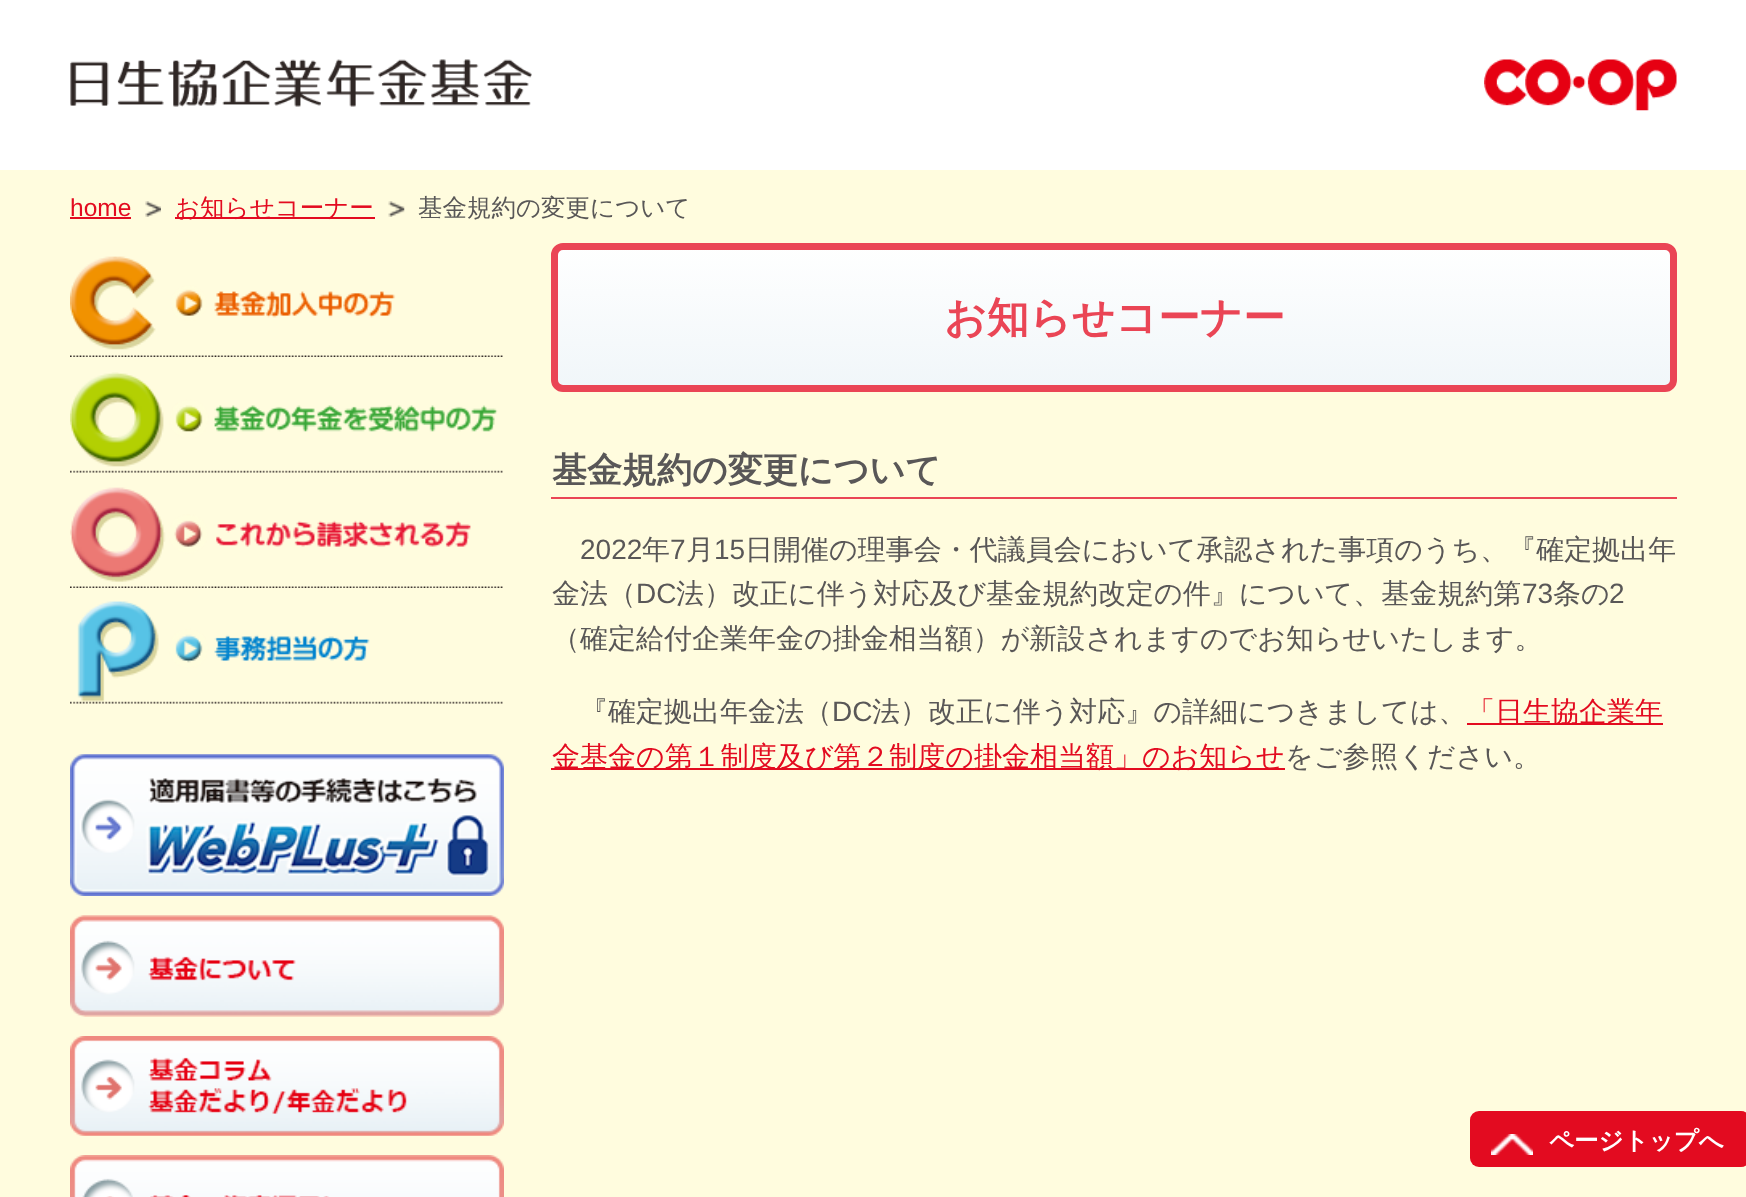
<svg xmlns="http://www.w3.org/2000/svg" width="1746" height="1197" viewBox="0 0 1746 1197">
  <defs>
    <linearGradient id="g1" gradientUnits="userSpaceOnUse" x1="1114" y1="243" x2="1114" y2="392"><stop offset="0" stop-color="rgb(255,255,255)"/><stop offset="1" stop-color="rgb(240,246,249)"/></linearGradient>
  </defs>
  <rect width="100%" height="100%" fill="rgb(255,252,222)"/>
  <rect x="0" y="0" width="1746" height="170" fill="rgb(255,255,255)"/>
  <image x="70" y="59" width="462" height="48" href="pic1.png"/>
  <image x="1484" y="59" width="193" height="52" href="pic2.png"/>
  <text x="70" y="216" font-family="Liberation Sans" font-size="24.5" fill="rgb(227,11,32)">home</text>
  <rect x="70" y="217" width="61" height="2" fill="rgb(227,11,32)"/>
  <image x="145" y="201" width="16" height="16" href="pic3.png"/>
  <rect x="175" y="217" width="200" height="2" fill="rgb(227,11,32)"/>
  <text x="175" y="216" font-family="WenQuanYi Zen Hei" font-size="24.5" font-weight="500" fill="rgb(227,11,32)">お知らせコーナー</text>
  <image x="388" y="201" width="17" height="16" href="pic4.png"/>
  <text x="418" y="216" font-family="WenQuanYi Zen Hei" font-size="24.5" font-weight="500" fill="rgb(89,87,87)">基金規約の変更について</text>
  <image x="70" y="256" width="433" height="101" href="pic5.png"/>
  <image x="70" y="372" width="433" height="101" href="pic6.png"/>
  <image x="70" y="487" width="433" height="101" href="pic7.png"/>
  <image x="70" y="601" width="433" height="103" href="pic8.png"/>
  <rect x="554.5" y="246.5" width="1119" height="142" rx="8.5" fill="url(#g1)" stroke="rgb(234,69,85)" stroke-width="7"/>
  <text x="944" y="332" font-family="WenQuanYi Zen Hei" font-size="42" font-weight="bold" fill="rgb(234,69,85)">お知らせコーナー</text>
  <rect x="551" y="497" width="1126" height="2" fill="rgb(234,69,85)"/>
  <text x="552" y="482" font-family="WenQuanYi Zen Hei" font-size="35" font-weight="bold" fill="rgb(89,87,87)">基金規約の変更について</text>
  <text x="580" y="559" font-family="Liberation Sans" font-size="28" fill="rgb(89,87,87)">2022</text>
  <text x="642" y="559" font-family="WenQuanYi Zen Hei" font-size="28" font-weight="500" fill="rgb(89,87,87)">年</text>
  <text x="670" y="559" font-family="Liberation Sans" font-size="28" fill="rgb(89,87,87)">7</text>
  <text x="686" y="559" font-family="WenQuanYi Zen Hei" font-size="28" font-weight="500" fill="rgb(89,87,87)">月</text>
  <text x="714" y="559" font-family="Liberation Sans" font-size="28" fill="rgb(89,87,87)">15</text>
  <g font-family="WenQuanYi Zen Hei" font-size="28" font-weight="500" fill="rgb(89,87,87)">
    <text x="745" y="559">日開催の理事会・代議員会において承認された事項のうち、『確定拠出年</text>
    <text x="552" y="603">金法（</text>
  </g>
  <text x="636" y="603" font-family="Liberation Sans" font-size="28" fill="rgb(89,87,87)">DC</text>
  <text x="676" y="603" font-family="WenQuanYi Zen Hei" font-size="28" font-weight="500" fill="rgb(89,87,87)">法）改正に伴う対応及び基金規約改定の件』について、基金規約第</text>
  <text x="1522" y="603" font-family="Liberation Sans" font-size="28" fill="rgb(89,87,87)">73</text>
  <text x="1553" y="603" font-family="WenQuanYi Zen Hei" font-size="28" font-weight="500" fill="rgb(89,87,87)">条の</text>
  <text x="1609" y="603" font-family="Liberation Sans" font-size="28" fill="rgb(89,87,87)">2</text>
  <g font-family="WenQuanYi Zen Hei" font-size="28" font-weight="500" fill="rgb(89,87,87)">
    <text x="552" y="648">（確定給付企業年金の掛金相当額）が新設されますのでお知らせいたします。</text>
    <text x="580" y="721">『確定拠出年金法（</text>
  </g>
  <text x="832" y="721" font-family="Liberation Sans" font-size="28" fill="rgb(89,87,87)">DC</text>
  <text x="872" y="721" font-family="WenQuanYi Zen Hei" font-size="28" font-weight="500" fill="rgb(89,87,87)">法）改正に伴う対応』の詳細につきましては、</text>
  <rect x="1467" y="723" width="196" height="2" fill="rgb(227,11,32)"/>
  <text x="1467" y="721" font-family="WenQuanYi Zen Hei" font-size="28" font-weight="500" fill="rgb(227,11,32)">「日生協企業年</text>
  <rect x="551" y="768" width="734" height="2" fill="rgb(227,11,32)"/>
  <text x="552" y="766" font-family="WenQuanYi Zen Hei" font-size="28" font-weight="500" fill="rgb(227,11,32)">金基金の第１制度及び第２制度の掛金相当額」のお知らせ</text>
  <text x="1285" y="766" font-family="WenQuanYi Zen Hei" font-size="28" font-weight="500" fill="rgb(89,87,87)">をご参照ください。</text>
  <image x="70" y="754" width="434" height="142" href="pic9.png"/>
  <image x="70" y="915" width="434" height="102" href="pic10.png"/>
  <image x="70" y="1036" width="434" height="100" href="pic11.png"/>
  <image x="70" y="1155" width="434" height="42" href="pic12.png"/>
  <rect x="1470" y="1111" width="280" height="56" rx="9" fill="rgb(227,11,32)"/>
  <image x="1491" y="1134" width="42" height="21" href="pic13.png"/>
  <text x="1549" y="1149" font-family="WenQuanYi Zen Hei" font-size="24.5" font-weight="bold" fill="rgb(255,255,255)">ページトップへ</text>
</svg>
